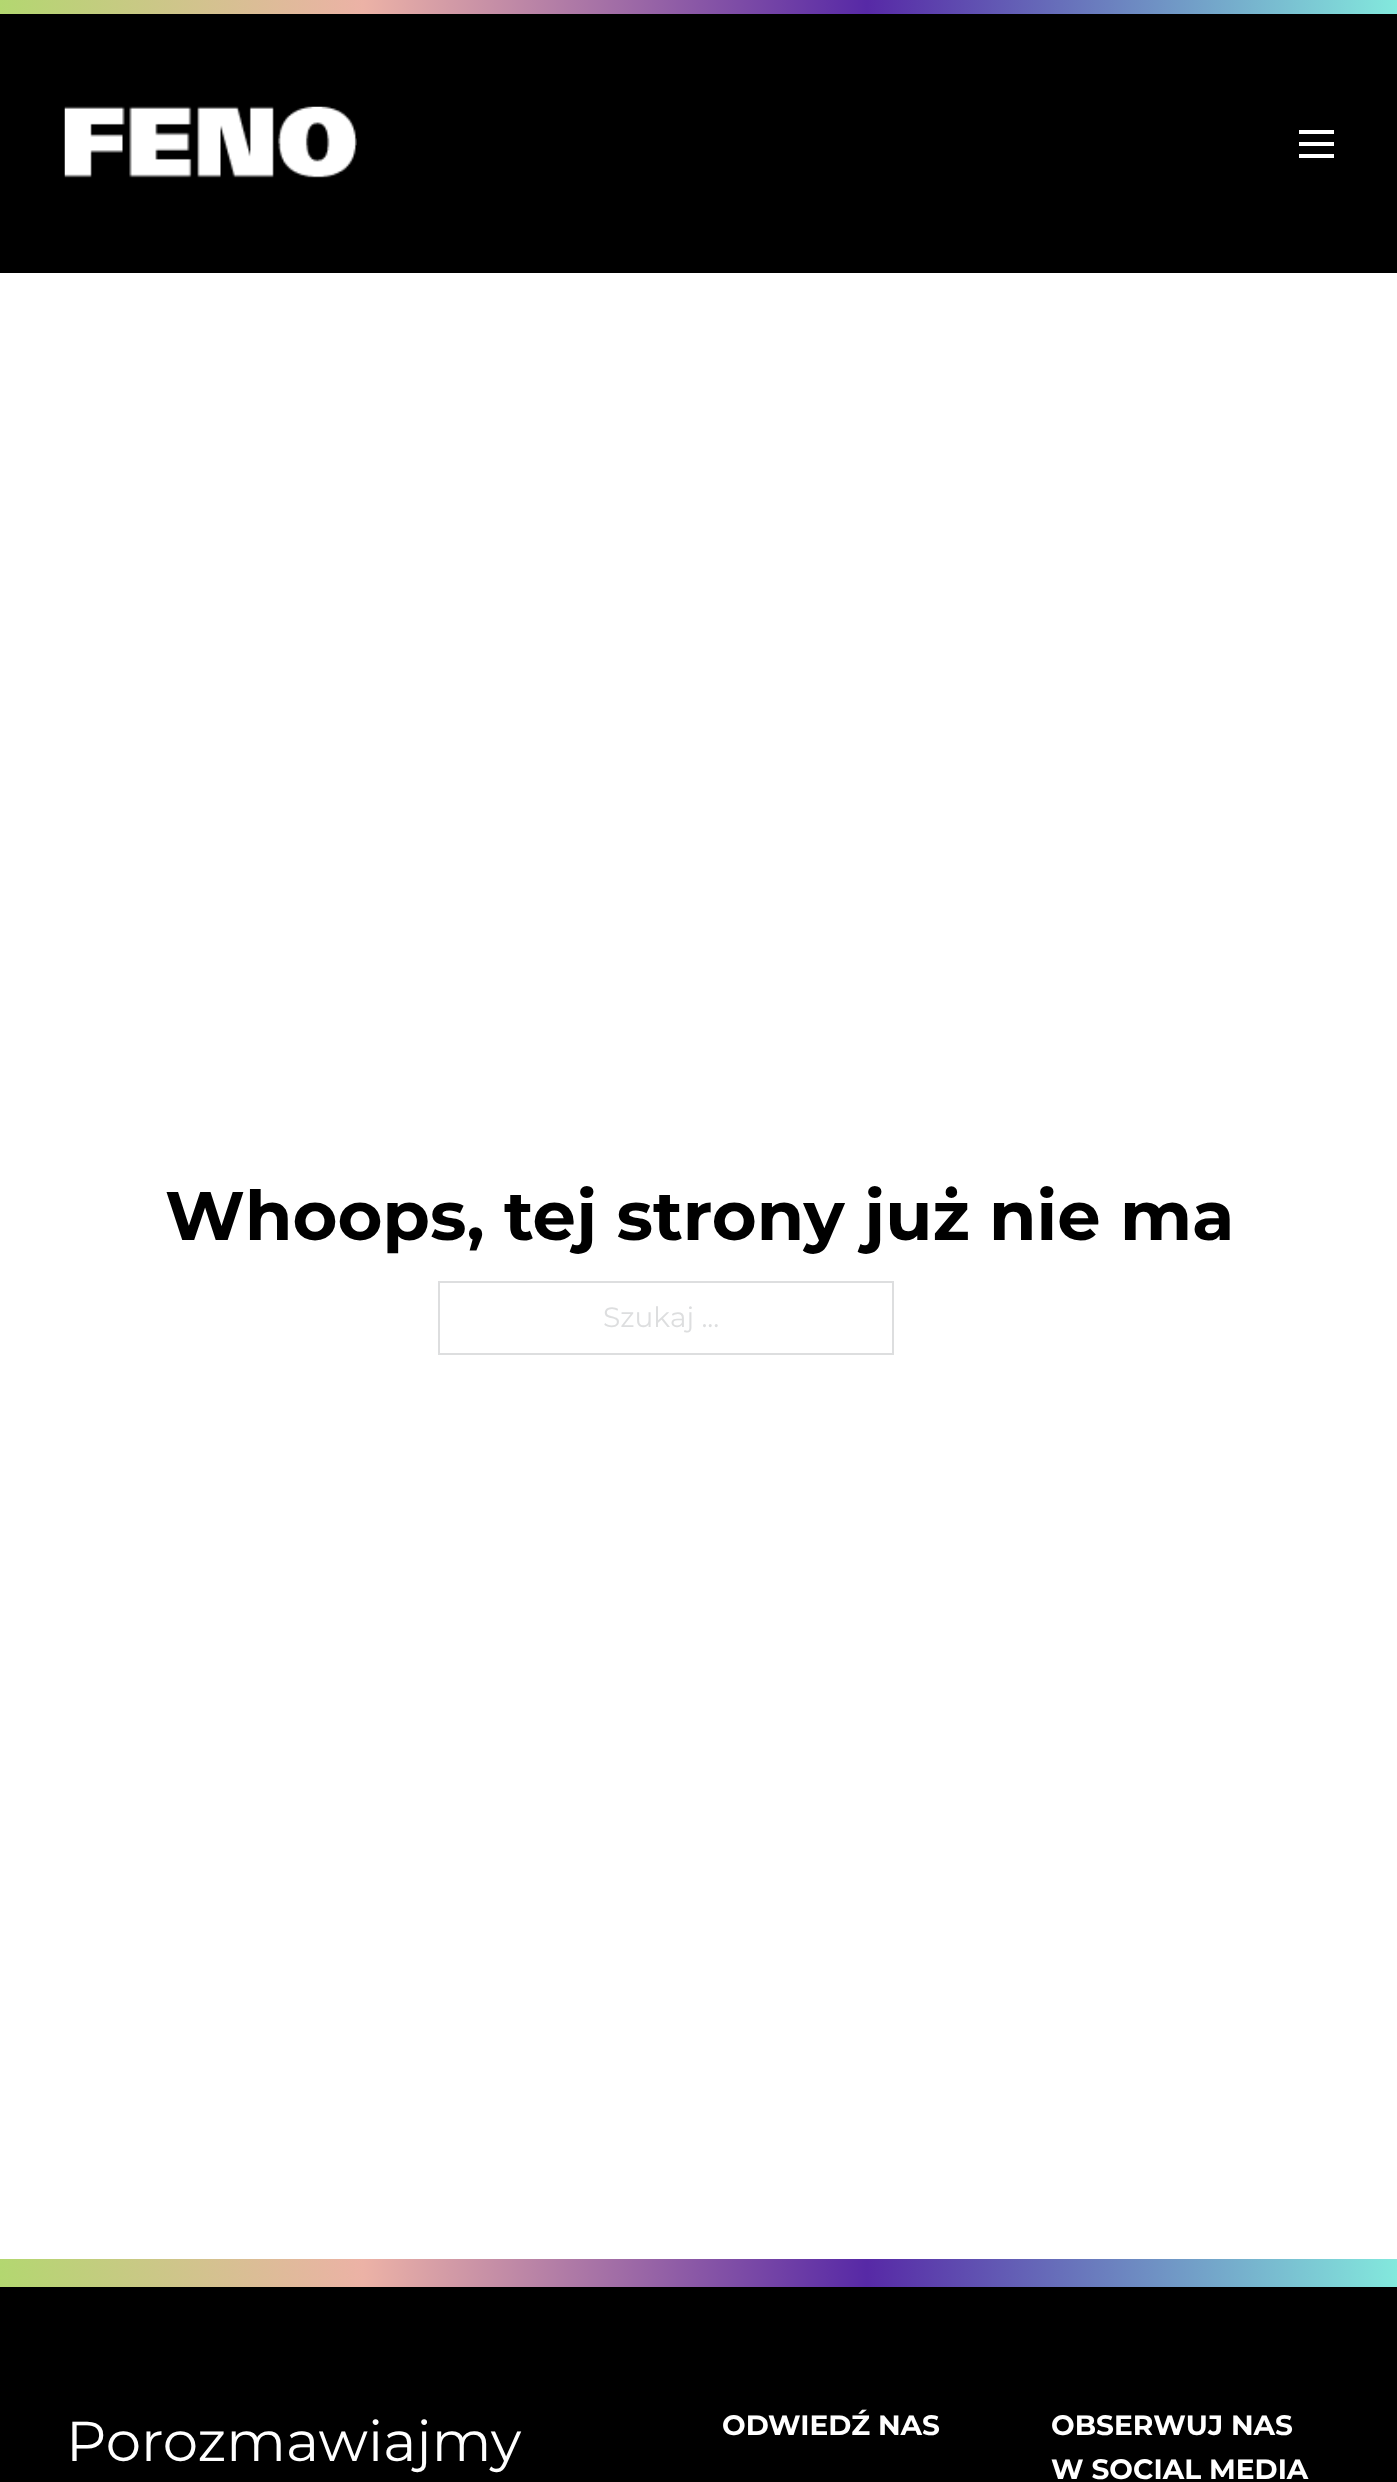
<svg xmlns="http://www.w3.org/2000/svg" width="1397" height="2482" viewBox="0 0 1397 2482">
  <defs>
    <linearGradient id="g1" gradientUnits="userSpaceOnUse" x1="0" y1="7" x2="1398" y2="7"><stop offset="0" stop-color="rgb(179,215,112)"/><stop offset="0.26" stop-color="rgb(236,178,166)"/><stop offset="0.62" stop-color="rgb(87,41,166)"/><stop offset="1" stop-color="rgb(131,233,221)"/></linearGradient>
    <linearGradient id="g2" gradientUnits="userSpaceOnUse" x1="0" y1="2273" x2="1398" y2="2273"><stop offset="0" stop-color="rgb(179,215,112)"/><stop offset="0.26" stop-color="rgb(236,178,166)"/><stop offset="0.62" stop-color="rgb(87,41,166)"/><stop offset="1" stop-color="rgb(131,233,221)"/></linearGradient>
  </defs>
  <rect width="100%" height="100%" fill="rgb(255,255,255)"/>
  <rect x="0" y="0" width="1397" height="14" fill="url(#g1)"/>
  <rect x="0" y="14" width="1397" height="259" fill="rgb(0,0,0)"/>
  <image x="64" y="106" width="293" height="72" href="pic1.png"/>
  <rect x="1299" y="130" width="35" height="4" fill="rgb(255,255,255)"/>
  <rect x="1299" y="142" width="35" height="4" fill="rgb(255,255,255)"/>
  <rect x="1299" y="154" width="35" height="4" fill="rgb(255,255,255)"/>
  <text x="165" y="1240" font-family="Montserrat" font-size="68.7" font-weight="100" fill="rgb(0,0,0)">Whoops, tej strony już nie ma</text>
  <rect x="439" y="1282" width="454" height="72" fill="none" stroke="rgb(221,222,223)" stroke-width="2"/>
  <text x="603" y="1327" font-family="'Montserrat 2'" font-size="28" font-weight="100" fill="rgb(221,222,223)">Szukaj ...</text>
  <rect x="0" y="2259" width="1397" height="28" fill="url(#g2)"/>
  <rect x="0" y="2287" width="1397" height="195" fill="rgb(0,0,0)"/>
  <text x="66" y="2461" font-family="'Montserrat 2'" font-size="56.25" font-weight="100" fill="rgb(255,255,255)">Porozmawiajmy</text>
  <g font-family="Montserrat" font-size="28" font-weight="100" fill="rgb(255,255,255)">
    <text x="722" y="2435">ODWIEDŹ NAS</text>
    <text>
      <tspan x="1051" y="2435">OBSERWUJ NAS</tspan>
      <tspan x="1051" y="2479">W SOCIAL MEDIA</tspan>
    </text>
  </g>
</svg>
